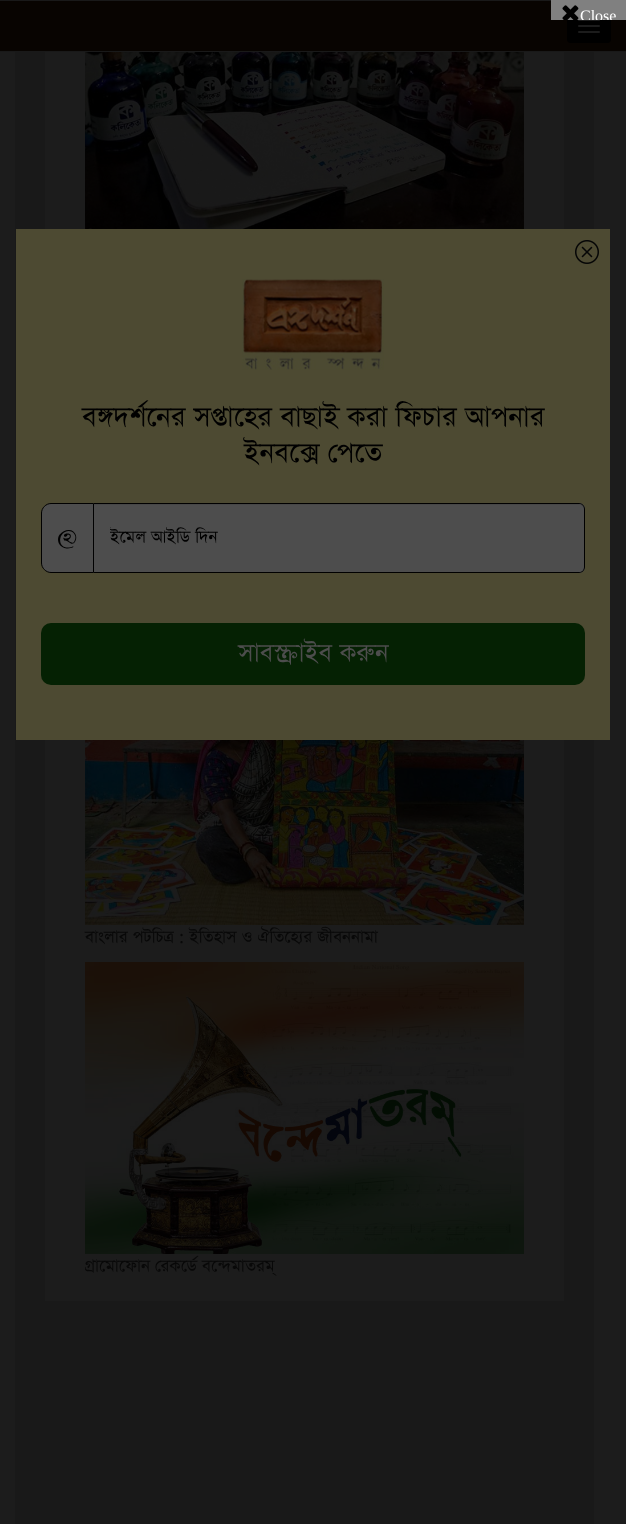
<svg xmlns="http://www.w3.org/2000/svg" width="626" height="1524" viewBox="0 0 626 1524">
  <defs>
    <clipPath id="clip1"><rect x="0" y="0" width="626" height="20"/></clipPath>
    <clipPath id="clip2"><rect x="110" y="526" width="458" height="23"/></clipPath>
  </defs>
  <rect width="100%" height="100%" fill="rgb(28,28,28)"/>
  <rect x="0" y="1" width="626" height="50" fill="rgb(8,4,1)"/>
  <rect x="0" y="0" width="551" height="1" fill="rgb(25,25,25)"/>
  <rect x="0" y="51" width="626" height="1" fill="rgb(25,25,25)"/>
  <rect x="567" y="9" width="44" height="34" rx="4" fill="rgb(0,0,0)"/>
  <rect x="578" y="19" width="22" height="2" rx="1" fill="rgb(28,28,28)"/>
  <rect x="578" y="25" width="22" height="2" rx="1" fill="rgb(28,28,28)"/>
  <rect x="578" y="31" width="22" height="2" rx="1" fill="rgb(28,28,28)"/>
  <rect x="551" y="0" width="75" height="20" fill="rgb(128,128,128)"/>
  <image x="562" y="5" width="17" height="15" href="pic1.png"/>
  <g clip-path="url(#clip1)">
    <text x="580" y="21" font-family="Liberation Serif" font-size="16" fill="rgb(255,255,255)">Close</text>
  </g>
  <rect x="15" y="52" width="579" height="1472" fill="rgb(25,25,25)"/>
  <rect x="45" y="52" width="519" height="1249" fill="rgb(28,28,28)"/>
  <image x="85" y="52" width="439" height="177" href="pic2.png"/>
  <image x="85" y="740" width="439" height="185" href="pic3.png"/>
  <text x="85" y="943" font-family="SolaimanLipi" font-size="20" fill="rgb(8,8,8)">বাংলার পটচিত্র : ইতিহাস ও ঐতিহ্যের জীবননামা</text>
  <image x="85" y="962" width="439" height="292" href="pic4.png"/>
  <text x="85" y="1272" font-family="SolaimanLipi" font-size="20" fill="rgb(8,8,8)">গ্রামোফোন রেকর্ডে বন্দেমাতরম্</text>
  <rect x="16" y="229" width="594" height="511" fill="rgb(77,74,50)"/>
  <image x="575" y="240" width="24" height="24" href="pic5.png"/>
  <image x="242" y="279" width="142" height="91" href="pic6.png"/>
  <g font-family="SolaimanLipi" font-size="33" fill="rgb(0,0,0)">
    <text x="82" y="427">বঙ্গদর্শনের সপ্তাহের বাছাই করা ফিচার আপনার</text>
    <text x="244" y="463">ইনবক্সে পেতে</text>
  </g>
  <path d="M51 503.5H93.5V572.5H51C46 572.5 41.5 568 41.5 563V513C41.5 508 46 503.5 51 503.5Z" fill="rgb(77,77,77)" stroke="rgb(0,0,0)"/>
  <text x="58" y="545" font-family="SolaimanLipi" font-size="25" fill="rgb(0,0,0)">@</text>
  <path d="M94 503H579C582.5 503 585 505.5 585 509V567C585 570.5 582.5 573 579 573H94Z" fill="rgb(77,77,77)"/>
  <path d="M94 505H579C582 505 584 507 584 510V509C584 506 582 504 579 504H94Z" fill="rgb(71,71,71)"/>
  <path d="M94 503H579C582 503 585 506 585 509V567C585 570 582 573 579 573H94ZM94 504H579C582 504 584 506 584 509V567C584 570 582 572 579 572H94Z" fill="rgb(0,0,0)" fill-rule="evenodd"/>
  <g clip-path="url(#clip2)">
    <text x="110" y="543" font-family="SolaimanLipi" font-size="20" fill="rgb(0,0,0)">ইমেল আইডি দিন</text>
  </g>
  <rect x="41" y="623" width="544" height="62" rx="10" fill="rgb(5,33,3)"/>
  <text x="238" y="662" font-family="SolaimanLipi" font-size="30" fill="rgb(77,77,77)">সাবস্ক্রাইব করুন</text>
</svg>
